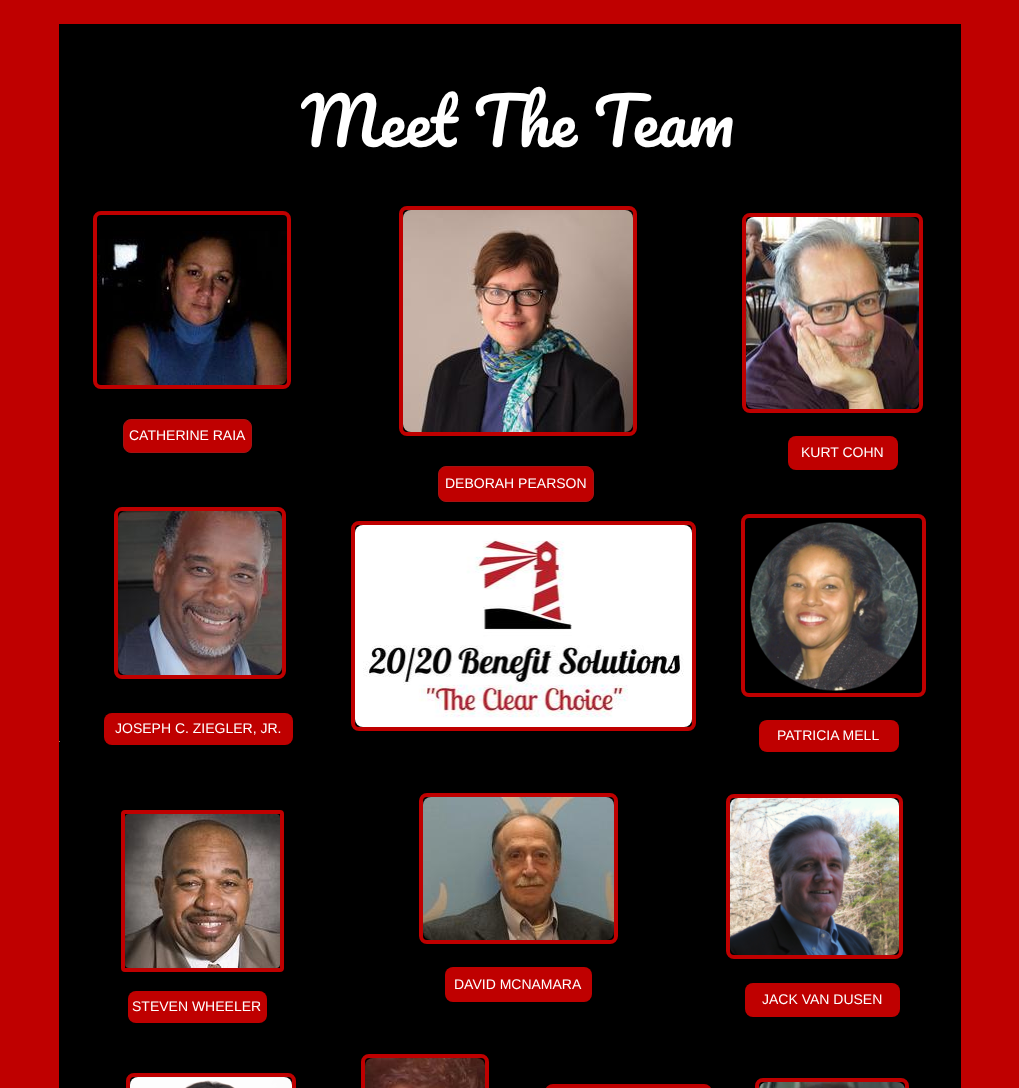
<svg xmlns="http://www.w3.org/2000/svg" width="1019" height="1088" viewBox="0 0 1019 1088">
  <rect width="100%" height="100%" fill="rgb(191,0,0)"/>
  <rect x="59" y="24" width="902" height="1064" fill="rgb(0,0,0)"/>
  <text x="301" y="147" font-family="Pacifico" font-size="64" fill="rgb(255,255,255)">Meet The Team</text>
  <rect x="95" y="213" width="194" height="174" rx="6" fill="none" stroke="rgb(191,0,0)" stroke-width="4"/>
  <image x="97" y="231" width="190" height="154" href="pic1.png"/>
  <rect x="401" y="208" width="234" height="226" rx="6" fill="none" stroke="rgb(191,0,0)" stroke-width="4"/>
  <image x="403" y="210" width="230" height="222" href="pic2.png"/>
  <rect x="744" y="215" width="177" height="196" rx="6" fill="none" stroke="rgb(191,0,0)" stroke-width="4"/>
  <image x="746" y="217" width="173" height="192" href="pic3.png"/>
  <rect x="123.5" y="419.5" width="128" height="33" rx="7.5" fill="rgb(191,0,0)" stroke="rgb(166,18,18)"/>
  <text x="129" y="440" font-family="Liberation Sans" font-size="14" fill="rgb(255,255,255)">CATHERINE RAIA</text>
  <rect x="788" y="436" width="110" height="34" rx="8" fill="rgb(191,0,0)"/>
  <text x="801" y="457" font-family="Liberation Sans" font-size="14" fill="rgb(255,255,255)">KURT COHN</text>
  <rect x="438.5" y="466.5" width="155" height="35" rx="7.5" fill="rgb(191,0,0)" stroke="rgb(166,18,18)"/>
  <text x="445" y="488" font-family="Liberation Sans" font-size="14" fill="rgb(255,255,255)">DEBORAH PEARSON</text>
  <rect x="116" y="509" width="168" height="168" rx="6" fill="none" stroke="rgb(191,0,0)" stroke-width="4"/>
  <image x="118" y="511" width="164" height="164" href="pic4.png"/>
  <rect x="353" y="523" width="341" height="206" rx="6" fill="none" stroke="rgb(191,0,0)" stroke-width="4"/>
  <image x="355" y="525" width="337" height="202" href="pic5.png"/>
  <rect x="743" y="516" width="181" height="179" rx="6" fill="none" stroke="rgb(191,0,0)" stroke-width="4"/>
  <image x="749" y="522" width="170" height="169" href="pic6.png"/>
  <rect x="104" y="713" width="189" height="32" rx="8" fill="rgb(191,0,0)"/>
  <text x="115" y="733" font-family="Liberation Sans" font-size="14" fill="rgb(255,255,255)">JOSEPH C. ZIEGLER, JR.</text>
  <rect x="759" y="720" width="140" height="32" rx="8" fill="rgb(191,0,0)"/>
  <text x="777" y="740" font-family="Liberation Sans" font-size="14" fill="rgb(255,255,255)">PATRICIA MELL</text>
  <rect x="59" y="741" width="1" height="1" fill="rgb(163,129,84)"/>
  <rect x="123" y="812" width="159" height="158" rx="2" fill="none" stroke="rgb(191,0,0)" stroke-width="4"/>
  <image x="125" y="814" width="155" height="154" href="pic7.png"/>
  <rect x="421" y="795" width="195" height="147" rx="6" fill="none" stroke="rgb(191,0,0)" stroke-width="4"/>
  <image x="423" y="797" width="191" height="143" href="pic8.png"/>
  <rect x="728" y="796" width="173" height="161" rx="6" fill="none" stroke="rgb(191,0,0)" stroke-width="4"/>
  <image x="730" y="798" width="169" height="157" href="pic9.png"/>
  <rect x="445" y="967" width="147" height="35" rx="8" fill="rgb(191,0,0)"/>
  <text x="454" y="989" font-family="Liberation Sans" font-size="14" fill="rgb(255,255,255)">DAVID MCNAMARA</text>
  <rect x="745" y="983" width="155" height="34" rx="8" fill="rgb(191,0,0)"/>
  <text x="762" y="1004" font-family="Liberation Sans" font-size="14" fill="rgb(255,255,255)">JACK VAN DUSEN</text>
  <rect x="128" y="991" width="139" height="32" rx="8" fill="rgb(191,0,0)"/>
  <text x="132" y="1011" font-family="Liberation Sans" font-size="14" fill="rgb(255,255,255)">STEVEN WHEELER</text>
  <rect x="128" y="1075" width="166" height="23" rx="6" fill="none" stroke="rgb(191,0,0)" stroke-width="4"/>
  <image x="130" y="1077" width="162" height="11" href="pic10.png"/>
  <rect x="363" y="1056" width="124" height="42" rx="6" fill="none" stroke="rgb(191,0,0)" stroke-width="4"/>
  <image x="365" y="1058" width="120" height="30" href="pic11.png"/>
  <rect x="547" y="1086" width="163" height="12" rx="6" fill="none" stroke="rgb(191,0,0)" stroke-width="4"/>
  <rect x="757" y="1080" width="150" height="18" rx="6" fill="none" stroke="rgb(191,0,0)" stroke-width="4"/>
  <image x="759" y="1082" width="146" height="6" href="pic12.png"/>
</svg>
